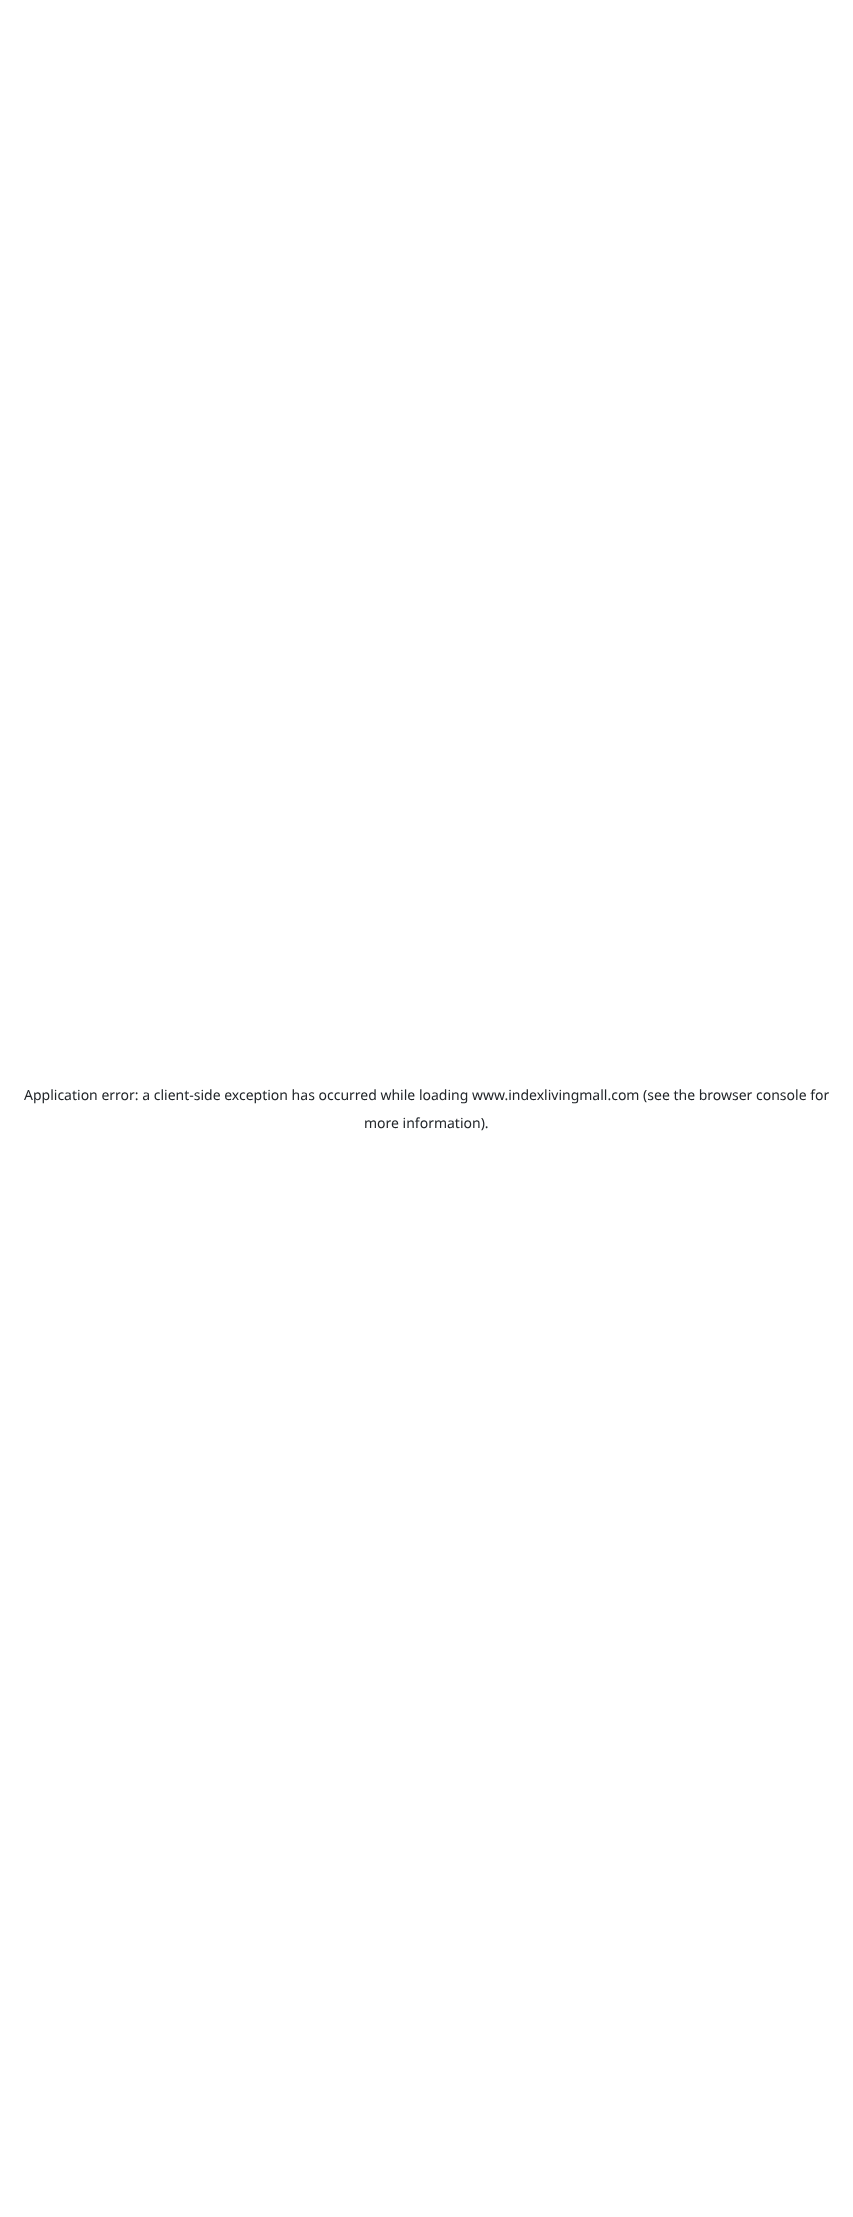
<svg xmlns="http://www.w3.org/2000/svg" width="853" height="2217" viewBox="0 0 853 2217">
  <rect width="100%" height="100%" fill="rgb(255,255,255)"/>
  <g font-family="Noto Sans" font-size="14" fill="rgb(33,37,41)">
    <text x="24" y="1100">Application error: a client-side exception has occurred while loading www.indexlivingmall.com (see the browser console for</text>
    <text x="364" y="1128">more information).</text>
  </g>
</svg>
